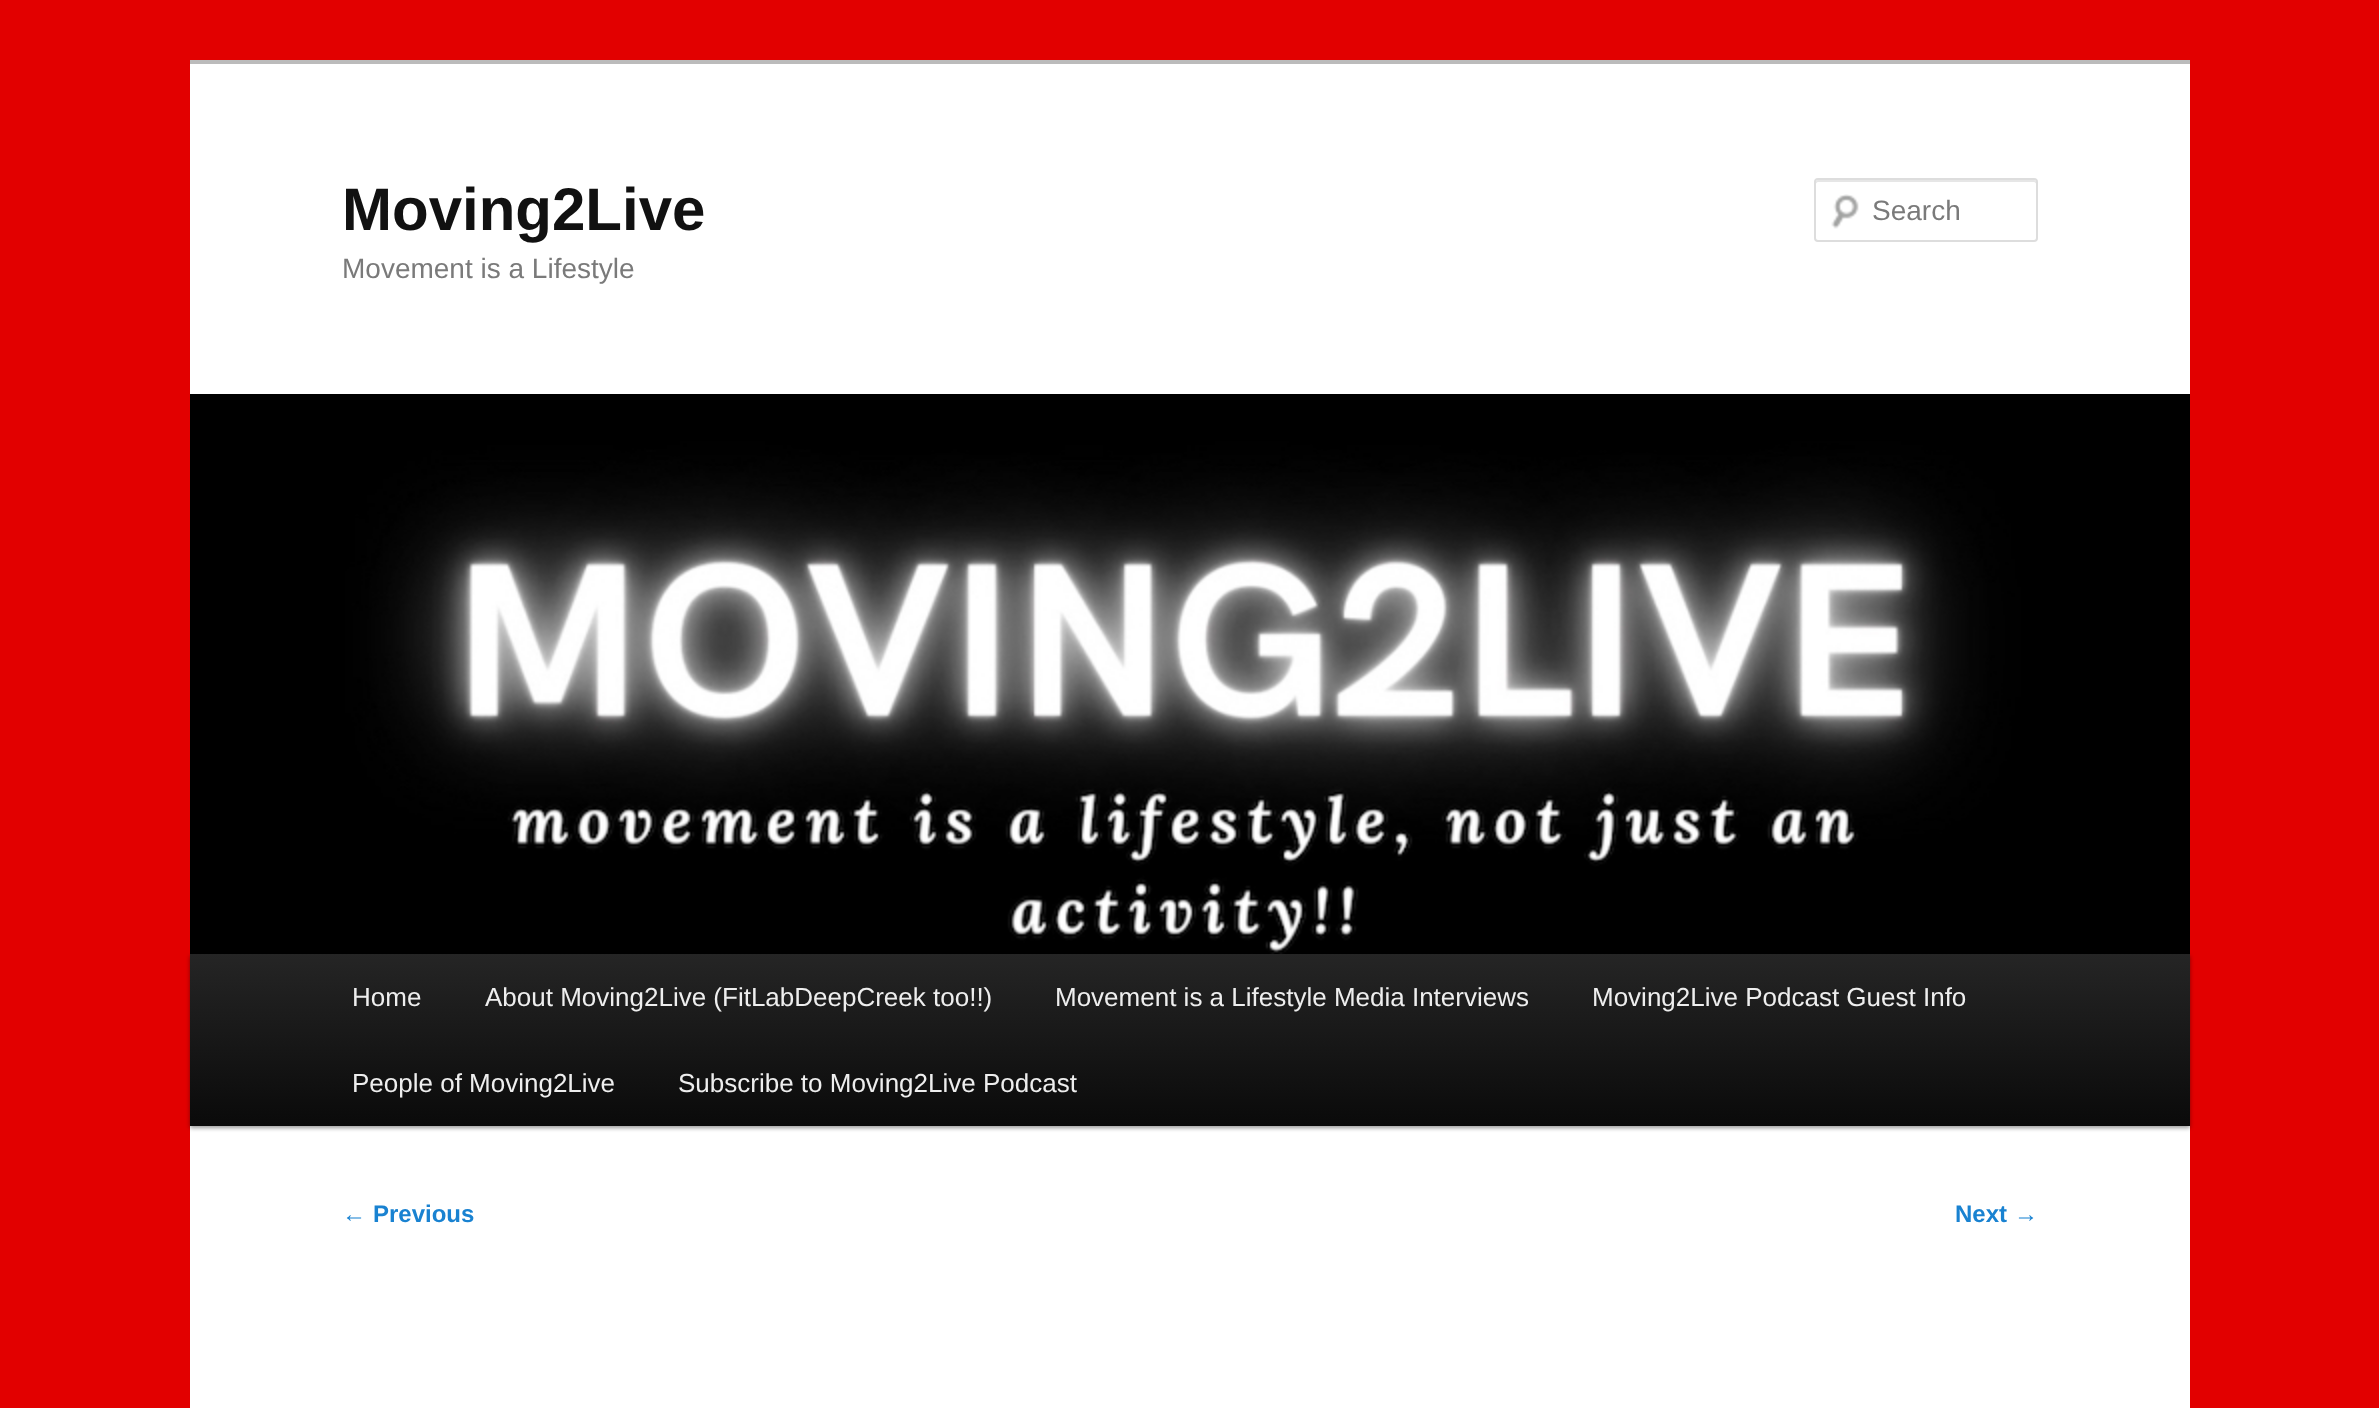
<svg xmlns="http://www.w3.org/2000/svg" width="2379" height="1408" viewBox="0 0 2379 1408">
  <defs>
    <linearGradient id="g1" gradientUnits="userSpaceOnUse" x1="1190" y1="954" x2="1190" y2="1126"><stop offset="0" stop-color="rgb(37,37,37)"/><stop offset="1" stop-color="rgb(10,10,10)"/></linearGradient>
  </defs>
  <rect width="100%" height="100%" fill="rgb(226,0,0)"/>
  <rect x="190" y="64" width="2000" height="1344" fill="rgb(255,255,255)"/>
  <rect x="190" y="60" width="2000" height="4" fill="rgb(187,187,187)"/>
  <text x="342" y="230" font-family="Liberation Sans" font-size="60" font-weight="bold" fill="rgb(17,17,17)">Moving2Live</text>
  <text x="342" y="278" font-family="Liberation Sans" font-size="28" fill="rgb(122,122,122)">Movement is a Lifestyle</text>
  <image x="1831" y="194" width="28" height="35" href="pic1.png"/>
  <path d="M1818 182H2034C2035 182 2036 183 2036 184V182C2036 181 2035 180 2034 180H1818C1817 180 1816 181 1816 182V184C1816 183 1817 182 1818 182Z" fill="rgb(230,230,230)"/>
  <rect x="1815" y="179" width="222" height="62" rx="3" fill="none" stroke="rgb(221,221,221)" stroke-width="2"/>
  <text x="1872" y="220" font-family="Liberation Sans" font-size="28" fill="rgb(122,122,122)">Search</text>
  <rect x="190" y="956" width="2000" height="172" fill="rgba(0,0,0,0.4)" filter="blur(2px)"/>
  <image x="190" y="394" width="2000" height="560" href="pic2.png"/>
  <rect x="190" y="954" width="2000" height="172" fill="url(#g1)"/>
  <g font-family="Liberation Sans" font-size="26" fill="rgb(238,238,238)">
    <text x="352" y="1006">Home</text>
    <text x="485" y="1006">About Moving2Live (FitLabDeepCreek too!!)</text>
    <text x="1055" y="1006">Movement is a Lifestyle Media Interviews</text>
    <text x="1592" y="1006">Moving2Live Podcast Guest Info</text>
    <text x="352" y="1092">People of Moving2Live</text>
    <text x="678" y="1092">Subscribe to Moving2Live Podcast</text>
  </g>
  <text x="342" y="1222" font-family="Liberation Sans" font-size="24" fill="rgb(25,130,209)">←</text>
  <g font-family="Liberation Sans" font-size="24" font-weight="bold" fill="rgb(25,130,209)">
    <text x="373" y="1222">Previous</text>
    <text x="1955" y="1222">Next</text>
  </g>
  <text x="2014" y="1222" font-family="Liberation Sans" font-size="24" fill="rgb(25,130,209)">→</text>
</svg>
